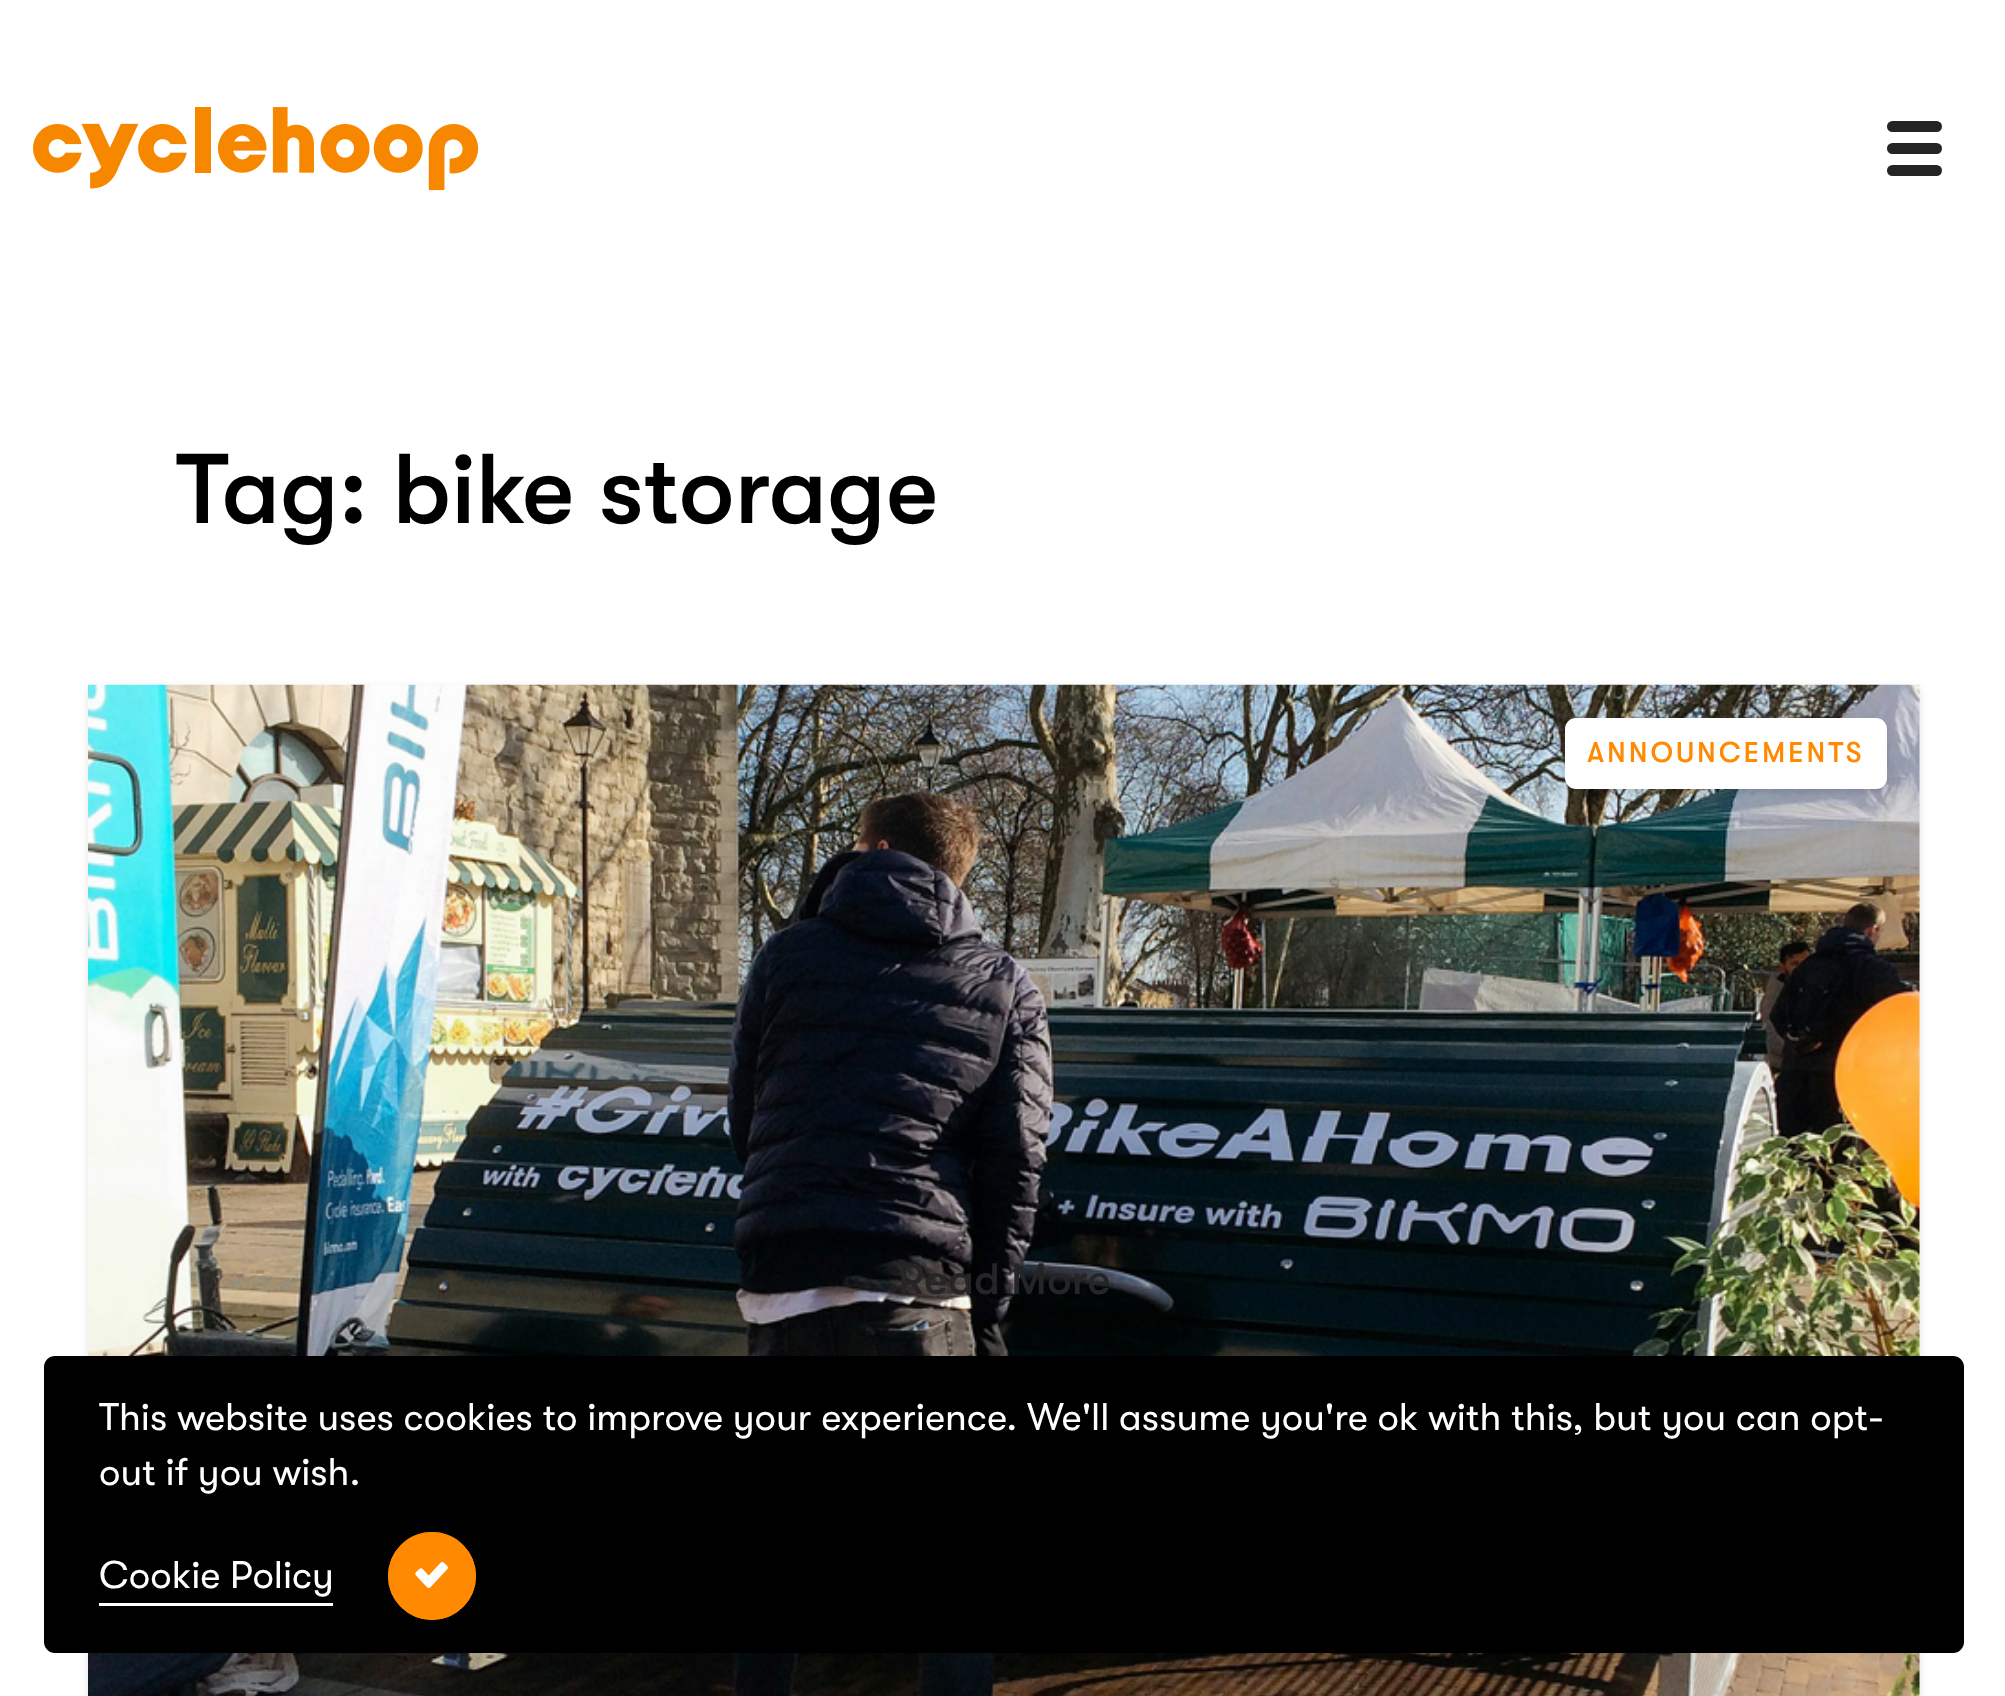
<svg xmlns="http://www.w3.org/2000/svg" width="2005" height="1696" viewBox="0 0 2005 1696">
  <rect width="100%" height="100%" fill="rgb(255,255,255)"/>
  <image x="33" y="107" width="446" height="84" href="pic1.png"/>
  <rect x="1887" y="121" width="55" height="11" rx="5.5" fill="rgb(36,36,37)"/>
  <rect x="1887" y="143" width="55" height="11" rx="5.5" fill="rgb(36,36,37)"/>
  <rect x="1887" y="165" width="55" height="11" rx="5.5" fill="rgb(36,36,37)"/>
  <text x="176" y="523" font-family="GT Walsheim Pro" font-size="99" font-weight="500" fill="rgb(0,0,0)">Tag: bike storage</text>
  <rect x="88" y="688" width="1832" height="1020" fill="rgba(0,0,0,0.1)" filter="blur(4px)"/>
  <rect x="1919" y="685" width="1" height="1011" fill="rgb(237,237,237)"/>
  <image x="88" y="684" width="1832" height="1012" href="pic2.png"/>
  <rect x="1568" y="723" width="316" height="66" rx="8" fill="rgba(0,0,0,0.1)" filter="blur(3px)"/>
  <rect x="1565" y="721" width="322" height="71" rx="11" fill="rgba(0,0,0,0.1)" filter="blur(4px)"/>
  <rect x="1565" y="718" width="322" height="71" rx="11" fill="rgb(255,255,255)"/>
  <text x="1587" y="762" font-family="GT Walsheim Pro" font-size="28.5" font-weight="500" letter-spacing="2.9" fill="rgb(255,137,0)">ANNOUNCEMENTS</text>
  <text x="898" y="1294" font-family="GT Walsheim Pro" font-size="44" font-weight="500" fill="rgb(37,36,38)">Read More</text>
  <rect x="44" y="1356" width="1920" height="297" rx="11" fill="rgb(0,0,0)"/>
  <g font-family="GT Walsheim Pro" font-size="38.5" fill="rgb(255,255,255)">
    <text>
      <tspan x="99" y="1430">This website uses cookies to improve your experience. We'll assume you're ok with this, but you can opt-</tspan>
      <tspan x="99" y="1485">out if you wish.</tspan>
    </text>
  </g>
  <rect x="99" y="1603" width="234" height="3" fill="rgb(255,255,255)"/>
  <text x="99" y="1588" font-family="GT Walsheim Pro" font-size="38.5" fill="rgb(255,255,255)">Cookie Policy</text>
  <circle cx="432" cy="1576" r="44" fill="rgb(255,137,0)"/>
  <image x="415" y="1562" width="33" height="27" href="pic3.png"/>
  <circle cx="432" cy="1576" r="41" fill="none" stroke="rgb(255,137,0)" stroke-width="6"/>
</svg>
